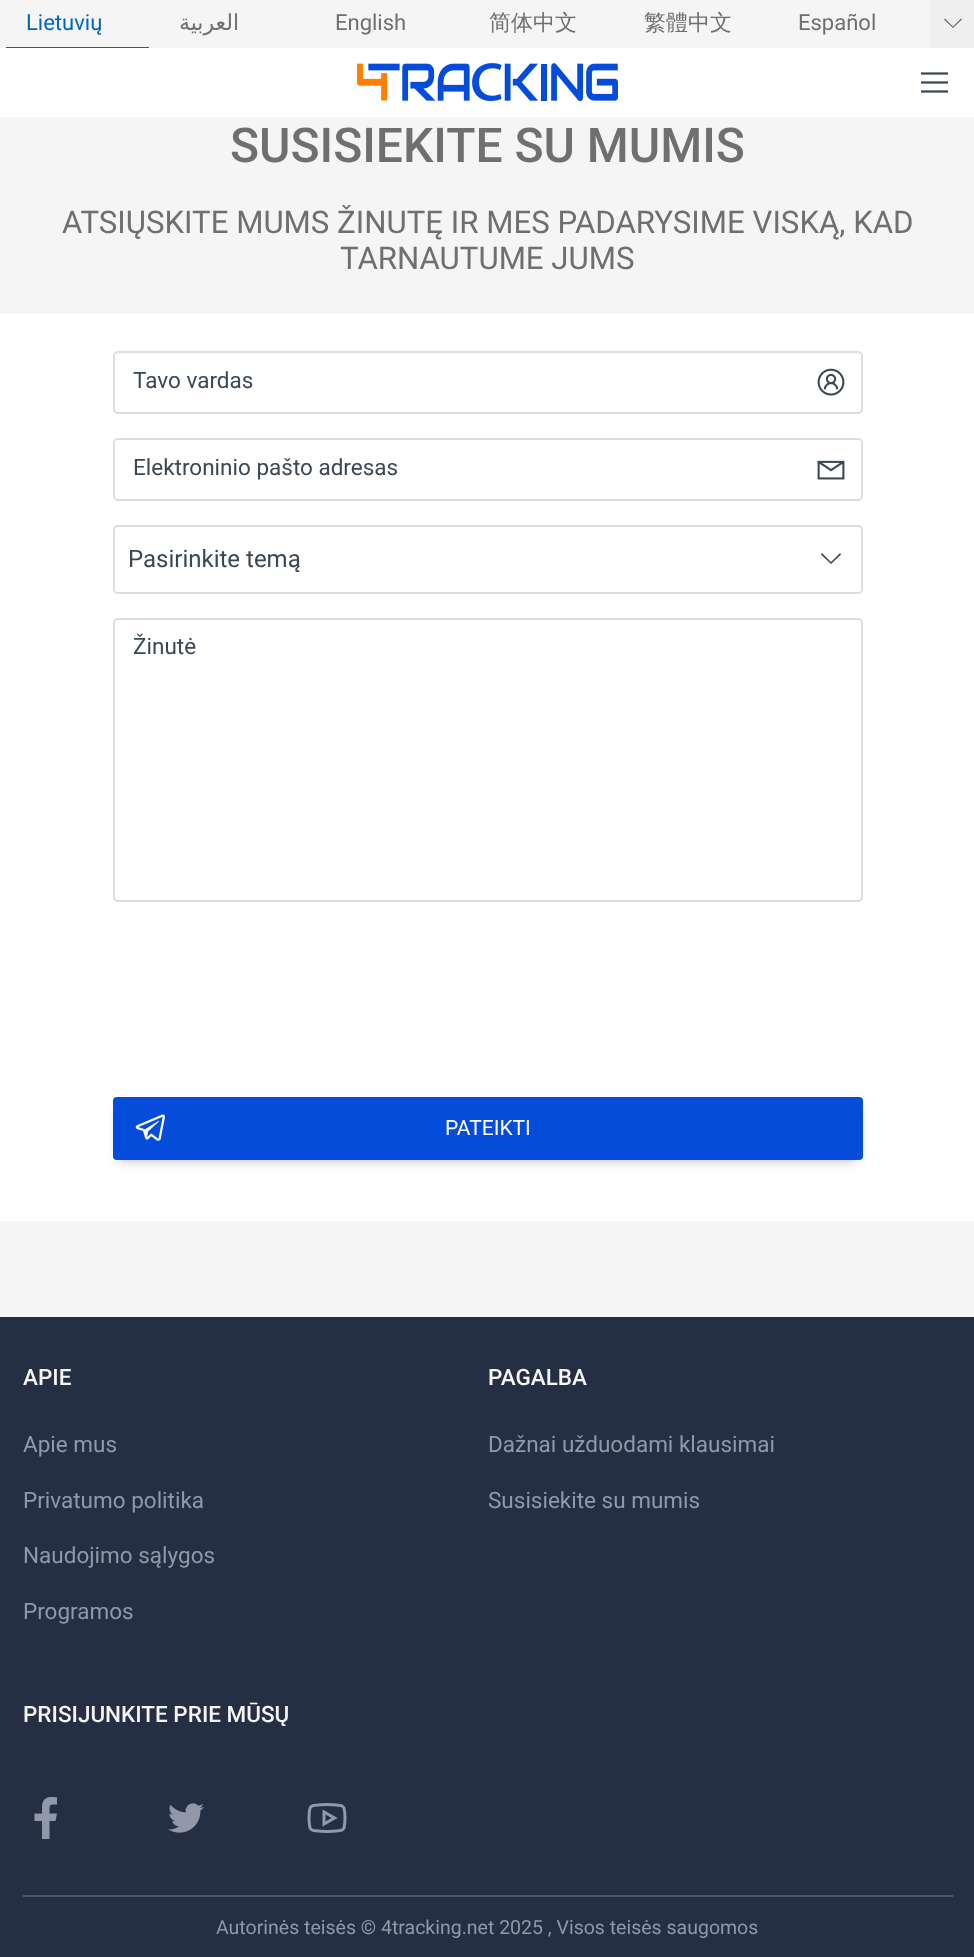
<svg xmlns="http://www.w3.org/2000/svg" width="974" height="1957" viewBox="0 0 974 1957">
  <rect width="100%" height="100%" fill="rgb(245,245,245)"/>
  <text x="26" y="30" font-family="Roboto" font-size="22" fill="rgb(0,102,192)">Lietuvių</text>
  <rect x="6" y="47" width="143" height="1" fill="rgb(0,102,192)"/>
  <text x="239" y="30" font-family="DejaVu Sans" font-size="22" direction="rtl" fill="rgb(111,111,111)">العربية</text>
  <text x="335" y="30" font-family="Roboto" font-size="22" fill="rgb(111,111,111)">English</text>
  <g font-family="WenQuanYi Zen Hei" font-size="22" font-weight="500" fill="rgb(111,111,111)">
    <text x="489" y="30">简体中文</text>
    <text x="644" y="30">繁體中文</text>
  </g>
  <text x="798" y="30" font-family="Roboto" font-size="22" fill="rgb(111,111,111)">Español</text>
  <rect x="930" y="0" width="44" height="48" fill="rgb(239,239,239)"/>
  <path d="M945 18.5L944 19.5L953 28L962 19.5L961 18.5L953 26.5Z" fill="rgb(111,111,111)"/>
  <rect x="0" y="48" width="974" height="69" fill="rgb(255,255,255)"/>
  <image x="357" y="63" width="261" height="39" href="pic1.png"/>
  <image x="921" y="72" width="27" height="21" href="pic2.png"/>
  <text x="230" y="162" font-family="Roboto" font-size="48" font-weight="500" fill="rgb(111,111,111)">SUSISIEKITE SU MUMIS</text>
  <g font-family="Roboto" font-size="31.2" fill="rgb(111,111,111)">
    <text x="62" y="233">ATSIŲSKITE MUMS ŽINUTĘ IR MES PADARYSIME VISKĄ, KAD</text>
    <text x="340" y="269">TARNAUTUME JUMS</text>
  </g>
  <rect x="0" y="314" width="974" height="907" fill="rgb(255,255,255)"/>
  <rect x="114" y="352" width="748" height="61" rx="4" fill="none" stroke="rgb(221,221,221)" stroke-width="2"/>
  <text x="133" y="388" font-family="Roboto" font-size="22.5" fill="rgb(59,71,83)">Tavo vardas</text>
  <image x="817" y="368" width="28" height="28" href="pic3.png"/>
  <rect x="114" y="439" width="748" height="61" rx="4" fill="none" stroke="rgb(221,221,221)" stroke-width="2"/>
  <text x="133" y="475" font-family="Roboto" font-size="22.5" fill="rgb(59,71,83)">Elektroninio pašto adresas</text>
  <image x="817" y="460" width="28" height="20" href="pic4.png"/>
  <rect x="114" y="526" width="748" height="67" rx="4" fill="none" stroke="rgb(221,221,221)" stroke-width="2"/>
  <text x="128" y="567" font-family="Roboto" font-size="24" fill="rgb(59,71,83)">Pasirinkite temą</text>
  <path d="M822 553L821 554.5L831 564L841 554.5L840 553L831 562Z" fill="rgb(59,71,83)"/>
  <rect x="114" y="619" width="748" height="282" rx="4" fill="none" stroke="rgb(221,221,221)" stroke-width="2"/>
  <text x="133" y="654" font-family="Roboto" font-size="22.5" fill="rgb(59,71,83)">Žinutė</text>
  <rect x="119" y="1109" width="738" height="51" fill="rgba(0,0,0,0.3)" filter="blur(6px)"/>
  <rect x="114" y="1098" width="748" height="61" rx="3" fill="rgb(6,76,219)" stroke="rgb(6,76,219)" stroke-width="2"/>
  <image x="135" y="1114" width="30" height="27" href="pic5.png"/>
  <text x="445" y="1135" font-family="Roboto" font-size="21" fill="rgb(255,255,255)">PATEIKTI</text>
  <rect x="0" y="1317" width="974" height="640" fill="rgb(37,47,68)"/>
  <text x="23" y="1385" font-family="Roboto" font-size="22.5" font-weight="500" fill="rgb(245,245,245)">APIE</text>
  <g font-family="Roboto" font-size="22.5" fill="rgb(144,152,169)">
    <text x="23" y="1452">Apie mus</text>
    <text x="23" y="1508">Privatumo politika</text>
    <text x="23" y="1563">Naudojimo sąlygos</text>
    <text x="23" y="1619">Programos</text>
  </g>
  <text x="488" y="1385" font-family="Roboto" font-size="22.5" font-weight="500" fill="rgb(245,245,245)">PAGALBA</text>
  <g font-family="Roboto" font-size="22.5" fill="rgb(144,152,169)">
    <text x="488" y="1452">Dažnai užduodami klausimai</text>
    <text x="488" y="1508">Susisiekite su mumis</text>
  </g>
  <text x="23" y="1722" font-family="Roboto" font-size="22.5" font-weight="500" fill="rgb(245,245,245)">PRISIJUNKITE PRIE MŪSŲ</text>
  <image x="34" y="1797" width="23" height="42" href="pic6.png"/>
  <image x="168" y="1803" width="36" height="30" href="pic7.png"/>
  <image x="307" y="1803" width="40" height="30" href="pic8.png"/>
  <rect x="23" y="1895" width="930" height="2" fill="rgb(74,86,111)"/>
  <text x="216" y="1934" font-family="Roboto" font-size="19.5" fill="rgb(144,152,169)">Autorinės teisės © 4tracking.net 2025 , Visos teisės saugomos</text>
</svg>
